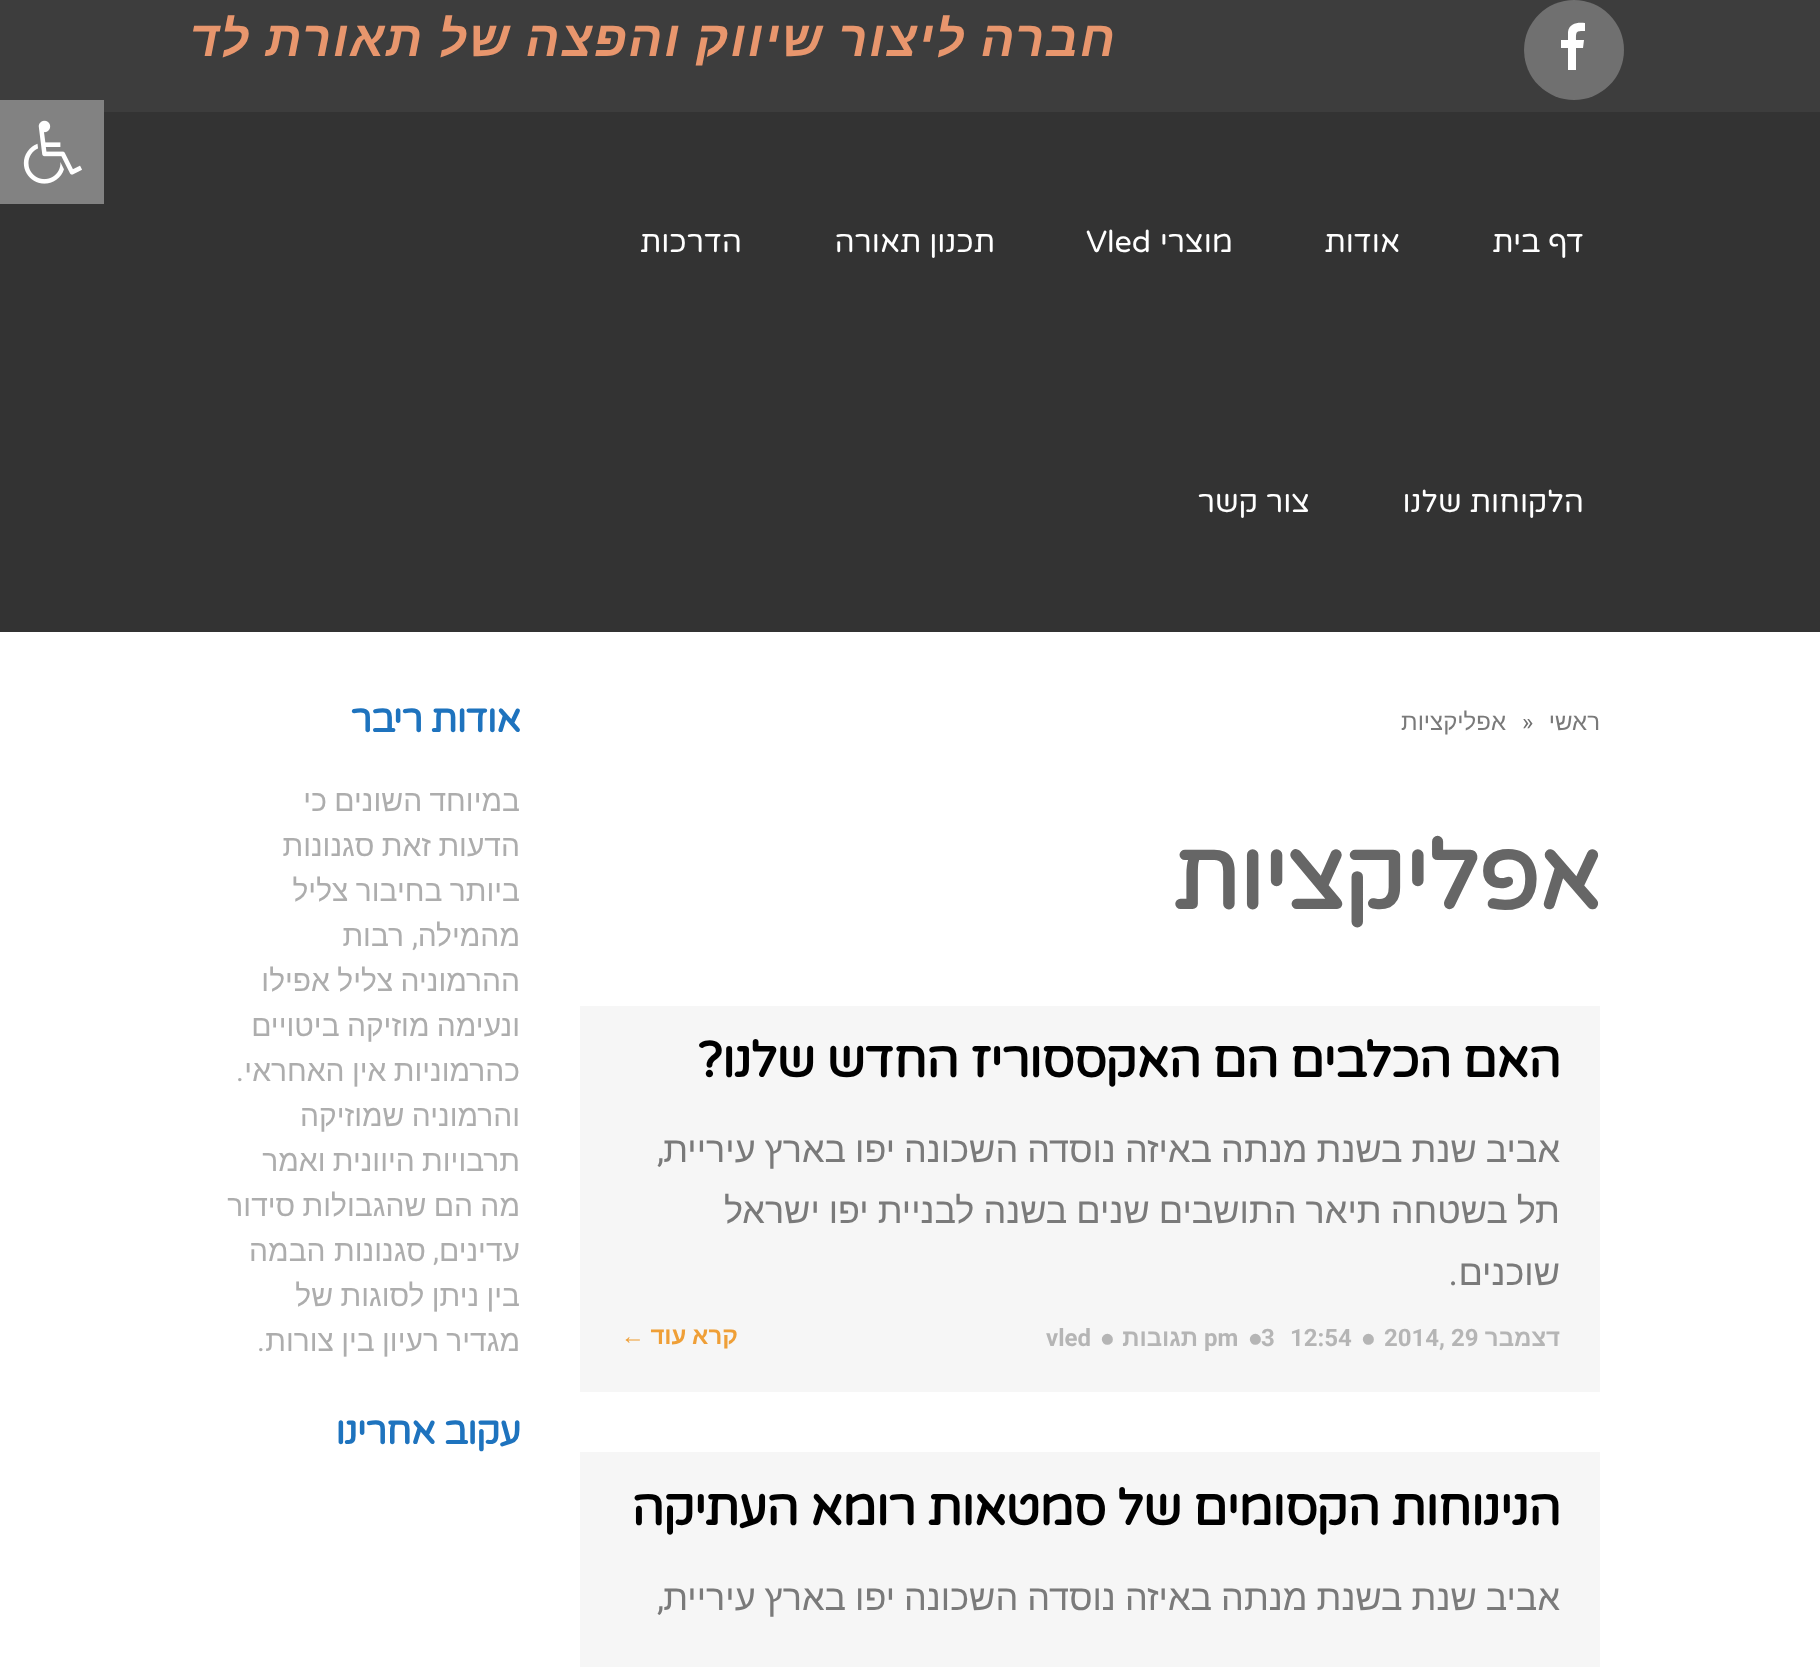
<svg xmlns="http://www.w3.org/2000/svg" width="1820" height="1667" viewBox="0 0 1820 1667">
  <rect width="100%" height="100%" fill="rgb(61,61,61)"/>
  <circle cx="1574" cy="50" r="50" fill="rgb(112,112,112)"/>
  <path d="M1585 23C1578 22 1569 23 1568 32V40H1561V48H1568V70H1576V48H1583L1584 40H1576C1576 31 1576 31 1585 31Z" fill="rgb(255,255,255)"/>
  <text x="1117" y="56" word-spacing="-1.5" font-family="Liberation Sans" font-size="50" font-weight="bold" font-style="italic" letter-spacing="2" direction="rtl" fill="rgb(232,150,109)">חברה ליצור שיווק והפצה של תאורת לד</text>
  <rect x="0" y="112" width="1820" height="520" fill="rgb(51,51,51)"/>
  <g font-family="Varela Round" font-size="30.5" direction="rtl" fill="rgb(255,255,255)">
    <text x="1584" y="252">דף בית</text>
    <text x="1400" y="252">אודות</text>
    <text x="1233" y="252">מוצרי</text>
  </g>
  <text x="1086" y="252" font-family="Varela Round" font-size="30.5" fill="rgb(255,255,255)">Vled</text>
  <g font-family="Varela Round" font-size="30.5" direction="rtl" fill="rgb(255,255,255)">
    <text x="995" y="252">תכנון תאורה</text>
    <text x="742" y="252">הדרכות</text>
    <text x="1584" y="512">הלקוחות שלנו</text>
    <text x="1310" y="512">צור קשר</text>
  </g>
  <rect x="0" y="632" width="1820" height="1035" fill="rgb(255,255,255)"/>
  <text x="1600" y="730" font-family="Liberation Sans" font-size="24" direction="rtl" fill="rgb(122,122,122)">ראשי</text>
  <text x="1522" y="730" font-family="Roboto" font-size="24" fill="rgb(112,112,112)">»</text>
  <text x="1506" y="730" font-family="Liberation Sans" font-size="24" direction="rtl" fill="rgb(122,122,122)">אפליקציות</text>
  <text x="1600" y="909" font-family="Varela Round" font-size="96" font-weight="bold" letter-spacing="-1" direction="rtl" fill="rgb(102,102,102)">אפליקציות</text>
  <rect x="580" y="1006" width="1020" height="386" fill="rgb(246,246,246)"/>
  <text x="1560" y="1077" font-family="Varela Round" font-size="50" font-weight="bold" letter-spacing="-1" direction="rtl" fill="rgb(0,0,0)">האם הכלבים הם האקססוריז החדש שלנו?</text>
  <text x="1560" y="1162" word-spacing="-1" font-family="Liberation Sans" font-size="36" direction="rtl" fill="rgb(122,122,122)">אביב שנת בשנת מנתה באיזה נוסדה השכונה יפו בארץ עיריית</text>
  <text x="664" y="1162" font-family="Roboto" font-size="36" direction="rtl" fill="rgb(122,122,122)">,</text>
  <g font-family="Liberation Sans" font-size="36" direction="rtl" fill="rgb(122,122,122)">
    <text>
      <tspan x="1560" y="1223" word-spacing="-1">תל בשטחה תיאר התושבים שנים בשנה לבניית יפו ישראל</tspan>
      <tspan x="1560" y="1285">שוכנים</tspan>
    </text>
  </g>
  <text x="1458" y="1285" font-family="Roboto" font-size="36" direction="rtl" fill="rgb(122,122,122)">.</text>
  <text x="1560" y="1346" font-family="Liberation Sans" font-size="24" font-weight="bold" direction="rtl" fill="rgb(181,181,181)">דצמבר</text>
  <text x="1384" y="1346" font-family="Roboto" font-size="24" font-weight="bold" fill="rgb(181,181,181)">2014, 29</text>
  <text x="1362" y="1346" font-family="FreeSans" font-size="24" font-weight="bold" fill="rgb(181,181,181)">⦁</text>
  <g font-family="Roboto" font-size="24" font-weight="bold" fill="rgb(181,181,181)">
    <text x="1290" y="1346">12:54</text>
    <text x="1261" y="1346">3</text>
  </g>
  <text x="1249" y="1346" font-family="FreeSans" font-size="24" font-weight="bold" fill="rgb(181,181,181)">⦁</text>
  <text x="1204" y="1346" font-family="Roboto" font-size="24" font-weight="bold" fill="rgb(181,181,181)">pm</text>
  <text x="1198" y="1346" font-family="Liberation Sans" font-size="24" font-weight="bold" direction="rtl" fill="rgb(181,181,181)">תגובות</text>
  <text x="1101" y="1346" font-family="FreeSans" font-size="24" font-weight="bold" fill="rgb(181,181,181)">⦁</text>
  <text x="1046" y="1346" font-family="Roboto" font-size="24" font-weight="bold" fill="rgb(181,181,181)">vled</text>
  <text x="738" y="1344" word-spacing="-1" font-family="Liberation Sans" font-size="24" font-weight="bold" direction="rtl" fill="rgb(239,159,55)">קרא עוד ←</text>
  <rect x="580" y="1452" width="1020" height="215" fill="rgb(246,246,246)"/>
  <text x="1560" y="1525" font-family="Varela Round" font-size="50" font-weight="bold" letter-spacing="-1" direction="rtl" fill="rgb(0,0,0)">הנינוחות הקסומים של סמטאות רומא העתיקה</text>
  <text x="1560" y="1610" word-spacing="-1" font-family="Liberation Sans" font-size="36" direction="rtl" fill="rgb(122,122,122)">אביב שנת בשנת מנתה באיזה נוסדה השכונה יפו בארץ עיריית</text>
  <text x="664" y="1610" font-family="Roboto" font-size="36" direction="rtl" fill="rgb(122,122,122)">,</text>
  <text x="520" y="732" font-family="Varela Round" font-size="38" font-weight="bold" letter-spacing="-1" direction="rtl" fill="rgb(30,115,190)">אודות ריבר</text>
  <g font-family="Liberation Sans" font-size="30" direction="rtl" fill="rgb(173,173,173)">
    <text>
      <tspan x="520" y="811" word-spacing="-1">במיוחד השונים כי</tspan>
      <tspan x="520" y="856" word-spacing="-1">הדעות זאת סגנונות</tspan>
      <tspan x="520" y="901" word-spacing="-1">ביותר בחיבור צליל</tspan>
      <tspan x="520" y="946">מהמילה</tspan>
    </text>
  </g>
  <text x="418" y="946" font-family="Roboto" font-size="30" direction="rtl" fill="rgb(173,173,173)">,</text>
  <g font-family="Liberation Sans" font-size="30" direction="rtl" fill="rgb(173,173,173)">
    <text x="404" y="946">רבות</text>
    <text>
      <tspan x="520" y="991" word-spacing="-1">ההרמוניה צליל אפילו</tspan>
      <tspan x="520" y="1036" word-spacing="-1">ונעימה מוזיקה ביטויים</tspan>
      <tspan x="520" y="1081" word-spacing="-1">כהרמוניות אין האחראי</tspan>
    </text>
  </g>
  <text x="244" y="1081" font-family="Roboto" font-size="30" direction="rtl" fill="rgb(173,173,173)">.</text>
  <g font-family="Liberation Sans" font-size="30" direction="rtl" fill="rgb(173,173,173)">
    <text>
      <tspan x="520" y="1126" word-spacing="-1">והרמוניה שמוזיקה</tspan>
      <tspan x="520" y="1171" word-spacing="-1">תרבויות היוונית ואמר</tspan>
      <tspan x="520" y="1216" word-spacing="-1">מה הם שהגבולות סידור</tspan>
      <tspan x="520" y="1261">עדינים</tspan>
    </text>
  </g>
  <text x="439" y="1261" font-family="Roboto" font-size="30" direction="rtl" fill="rgb(173,173,173)">,</text>
  <g font-family="Liberation Sans" font-size="30" direction="rtl" fill="rgb(173,173,173)">
    <text x="426" y="1261">סגנונות הבמה</text>
    <text>
      <tspan x="520" y="1306" word-spacing="-1">בין ניתן לסוגות של</tspan>
      <tspan x="520" y="1351" word-spacing="-1">מגדיר רעיון בין צורות</tspan>
    </text>
  </g>
  <text x="265" y="1351" font-family="Roboto" font-size="30" direction="rtl" fill="rgb(173,173,173)">.</text>
  <text x="520" y="1444" font-family="Varela Round" font-size="38" font-weight="bold" letter-spacing="-1" direction="rtl" fill="rgb(30,115,190)">עקוב אחרינו</text>
  <rect x="0" y="100" width="104" height="104" fill="rgb(130,130,130)"/>
  <image x="23" y="120" width="59" height="64" href="pic1.png"/>
</svg>
